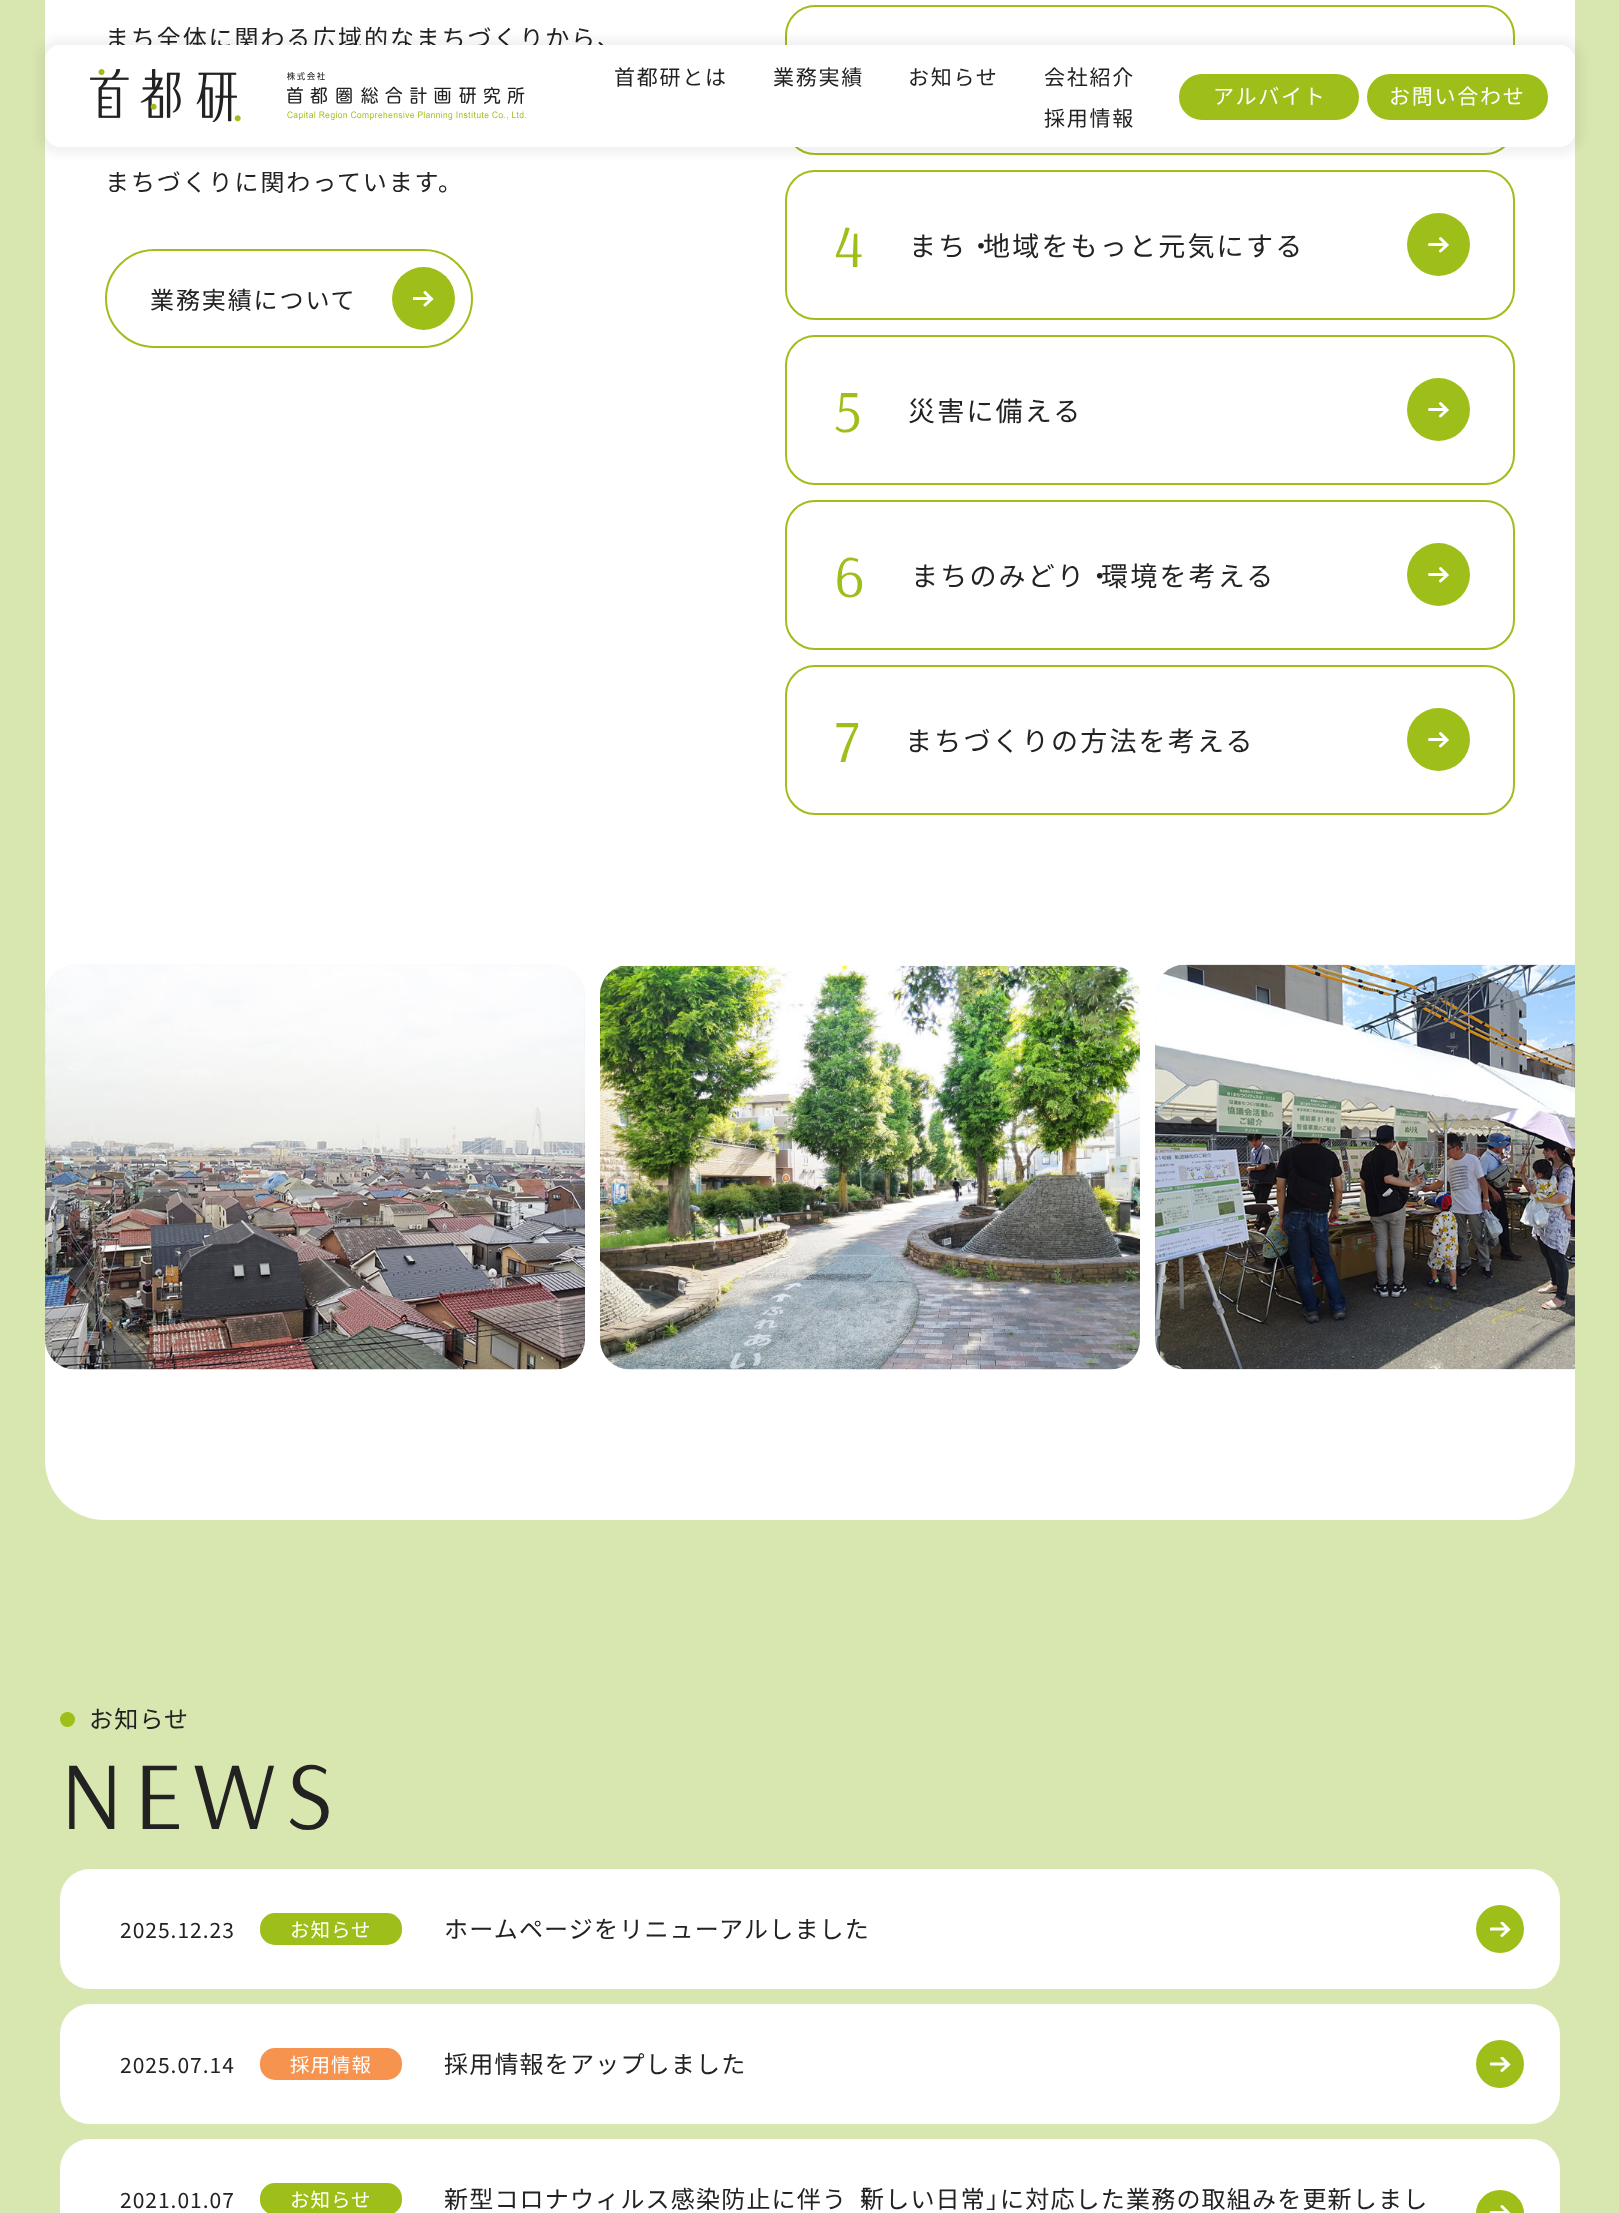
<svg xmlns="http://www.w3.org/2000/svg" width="1619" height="2213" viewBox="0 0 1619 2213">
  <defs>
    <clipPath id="clip1"><rect x="413" y="291" width="21" height="17"/></clipPath>
    <clipPath id="clip2"><rect x="1490" y="1922" width="21" height="16"/></clipPath>
    <clipPath id="clip3"><rect x="1490" y="2057" width="21" height="16"/></clipPath>
  </defs>
  <rect width="100%" height="100%" fill="rgb(216,231,176)"/>
  <rect x="45" y="-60" width="1530" height="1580" rx="60" fill="rgb(255,255,255)"/>
  <g font-family="Noto Sans JP" font-size="24" letter-spacing="1.9" fill="rgb(34,34,34)">
    <text x="105" y="47">まち全体に関わる広域的なまちづくりから、</text>
    <text x="105" y="191">まちづくりに関わっています。</text>
  </g>
  <rect x="106" y="250" width="366" height="97" rx="48.5" fill="none" stroke="rgb(158,190,25)" stroke-width="2"/>
  <text x="150" y="309" font-family="Noto Sans JP" font-size="24" letter-spacing="1.9" fill="rgb(34,34,34)">業務実績について</text>
  <circle cx="423.5" cy="298.5" r="31.5" fill="rgb(158,190,25)"/>
  <g clip-path="url(#clip1)">
    <path d="M425 292.5L431.5 299L425 305M414 298.5H430" fill="none" stroke="rgb(255,255,255)" stroke-width="3" stroke-linecap="round"/>
  </g>
  <rect x="786" y="6" width="728" height="148" rx="29" fill="none" stroke="rgb(158,190,25)" stroke-width="2"/>
  <rect x="786" y="171" width="728" height="148" rx="29" fill="none" stroke="rgb(158,190,25)" stroke-width="2"/>
  <text x="834" y="267" font-family="Arsenal" font-size="60" letter-spacing="2.2" fill="rgb(158,190,25)">4</text>
  <text x="909" y="256" font-family="Noto Sans JP" font-size="27" letter-spacing="2.2" fill="rgb(34,34,34)">まち・</text>
  <text x="983" y="256" font-family="Noto Sans JP" font-size="27" letter-spacing="2.2" fill="rgb(34,34,34)">地域をもっと元気にする</text>
  <circle cx="1438.5" cy="244.5" r="31.5" fill="rgb(158,190,25)"/>
  <path d="M1440.5 238.5L1447 245L1440.5 251M1429.5 244.5H1445.5" fill="none" stroke="rgb(255,255,255)" stroke-width="3" stroke-linecap="round"/>
  <rect x="786" y="336" width="728" height="148" rx="29" fill="none" stroke="rgb(158,190,25)" stroke-width="2"/>
  <text x="834" y="432" font-family="Arsenal" font-size="60" letter-spacing="2.2" fill="rgb(158,190,25)">5</text>
  <text x="908" y="421" font-family="Noto Sans JP" font-size="27" letter-spacing="2.2" fill="rgb(34,34,34)">災害に備える</text>
  <circle cx="1438.5" cy="409.5" r="31.5" fill="rgb(158,190,25)"/>
  <path d="M1440.5 403.5L1447 410L1440.5 416M1429.5 409.5H1445.5" fill="none" stroke="rgb(255,255,255)" stroke-width="3" stroke-linecap="round"/>
  <rect x="786" y="501" width="728" height="148" rx="29" fill="none" stroke="rgb(158,190,25)" stroke-width="2"/>
  <text x="834" y="597" font-family="Arsenal" font-size="60" letter-spacing="2.2" fill="rgb(158,190,25)">6</text>
  <text x="911" y="586" font-family="Noto Sans JP" font-size="27" letter-spacing="2.2" fill="rgb(34,34,34)">まちのみどり・</text>
  <text x="1101" y="586" font-family="Noto Sans JP" font-size="27" letter-spacing="2.2" fill="rgb(34,34,34)">環境を考える</text>
  <circle cx="1438.5" cy="574.5" r="31.5" fill="rgb(158,190,25)"/>
  <path d="M1440.5 568.5L1447 575L1440.5 581M1429.5 574.5H1445.5" fill="none" stroke="rgb(255,255,255)" stroke-width="3" stroke-linecap="round"/>
  <rect x="786" y="666" width="728" height="148" rx="29" fill="none" stroke="rgb(158,190,25)" stroke-width="2"/>
  <text x="834" y="762" font-family="Arsenal" font-size="60" letter-spacing="2.2" fill="rgb(158,190,25)">7</text>
  <text x="905" y="751" font-family="Noto Sans JP" font-size="27" letter-spacing="2.2" fill="rgb(34,34,34)">まちづくりの方法を考える</text>
  <circle cx="1438.5" cy="739.5" r="31.5" fill="rgb(158,190,25)"/>
  <path d="M1440.5 733.5L1447 740L1440.5 746M1429.5 739.5H1445.5" fill="none" stroke="rgb(255,255,255)" stroke-width="3" stroke-linecap="round"/>
  <image x="45" y="964" width="540" height="406" href="pic1.png"/>
  <image x="600" y="964" width="540" height="406" href="pic2.png"/>
  <image x="1155" y="964" width="420" height="406" href="pic3.png"/>
  <circle cx="67.5" cy="1719.5" r="7.5" fill="rgb(158,190,25)"/>
  <text x="89" y="1728" font-family="Noto Sans JP" font-size="24" letter-spacing="1.2" fill="rgb(34,34,34)">お知らせ</text>
  <text x="60" y="1829" font-family="Arsenal" font-size="97.5" letter-spacing="10" fill="rgb(34,34,34)">NEWS</text>
  <rect x="60" y="1869" width="1500" height="120" rx="30" fill="rgb(255,255,255)"/>
  <text x="120" y="1938" font-family="Noto Sans JP" font-size="21" letter-spacing="1" fill="rgb(34,34,34)">2025.12.23</text>
  <rect x="259" y="1912" width="144" height="34" rx="16" fill="rgb(158,190,25)" stroke="rgb(255,255,255)" stroke-width="2"/>
  <text x="290" y="1937" font-family="Noto Sans JP" font-size="19.5" letter-spacing="1" fill="rgb(255,255,255)">お知らせ</text>
  <text x="444" y="1938" font-family="Noto Sans JP" font-size="24" letter-spacing="1.2" fill="rgb(34,34,34)">ホームページをリニューアルしました</text>
  <circle cx="1500" cy="1929" r="24" fill="rgb(158,190,25)"/>
  <g clip-path="url(#clip2)">
    <path d="M1502 1923L1508.5 1929.5L1502 1935.5M1491 1929H1507" fill="none" stroke="rgb(255,255,255)" stroke-width="3" stroke-linecap="round"/>
  </g>
  <rect x="60" y="2004" width="1500" height="120" rx="30" fill="rgb(255,255,255)"/>
  <text x="120" y="2073" font-family="Noto Sans JP" font-size="21" letter-spacing="1" fill="rgb(34,34,34)">2025.07.14</text>
  <rect x="259" y="2047" width="144" height="34" rx="16" fill="rgb(245,147,79)" stroke="rgb(255,255,255)" stroke-width="2"/>
  <text x="290" y="2072" font-family="Noto Sans JP" font-size="19.5" letter-spacing="1" fill="rgb(255,255,255)">採用情報</text>
  <text x="444" y="2073" font-family="Noto Sans JP" font-size="24" letter-spacing="1.2" fill="rgb(34,34,34)">採用情報をアップしました</text>
  <circle cx="1500" cy="2064" r="24" fill="rgb(158,190,25)"/>
  <g clip-path="url(#clip3)">
    <path d="M1502 2058L1508.5 2064.5L1502 2070.5M1491 2064H1507" fill="none" stroke="rgb(255,255,255)" stroke-width="3" stroke-linecap="round"/>
  </g>
  <rect x="60" y="2139" width="1500" height="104" rx="30" fill="rgb(255,255,255)"/>
  <text x="120" y="2208" font-family="Noto Sans JP" font-size="21" letter-spacing="1" fill="rgb(34,34,34)">2021.01.07</text>
  <rect x="259" y="2182" width="144" height="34" rx="16" fill="rgb(158,190,25)" stroke="rgb(255,255,255)" stroke-width="2"/>
  <text x="290" y="2207" font-family="Noto Sans JP" font-size="19.5" letter-spacing="1" fill="rgb(255,255,255)">お知らせ</text>
  <text x="444" y="2208" font-family="Noto Sans JP" font-size="24" letter-spacing="1.2" fill="rgb(34,34,34)">新型コロナウィルス感染防止に伴う「</text>
  <text x="860" y="2208" font-family="Noto Sans JP" font-size="24" letter-spacing="1.2" fill="rgb(34,34,34)">新しい日常」</text>
  <text x="1000" y="2208" font-family="Noto Sans JP" font-size="24" letter-spacing="1.2" fill="rgb(34,34,34)">に対応した業務の取組みを更新しまし</text>
  <rect x="1476" y="2190" width="48" height="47" rx="24" fill="rgb(158,190,25)"/>
  <path d="M1502 2206.5L1508.5 2213L1502 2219M1491 2212.5H1507" fill="none" stroke="rgb(255,255,255)" stroke-width="3" stroke-linecap="round"/>
  <rect x="38" y="38" width="1545" height="117" rx="23" fill="rgba(0,0,0,0.05)" filter="blur(4px)"/>
  <rect x="45" y="45" width="1530" height="102" rx="15" fill="rgb(255,255,255)"/>
  <image x="90" y="69" width="151" height="53" href="pic4.png"/>
  <image x="287" y="72" width="239" height="48" href="pic5.png"/>
  <g font-family="Noto Sans JP" font-size="21" letter-spacing="1.75" fill="rgb(34,34,34)">
    <text x="614" y="85">首都研とは</text>
    <text x="773" y="85">業務実績</text>
    <text x="908" y="85">お知らせ</text>
    <text>
      <tspan x="1044" y="85">会社紹介</tspan>
      <tspan x="1044" y="126">採用情報</tspan>
    </text>
  </g>
  <rect x="1180" y="75" width="178" height="44" rx="22" fill="rgb(158,190,25)" stroke="rgb(158,190,25)" stroke-width="2"/>
  <text x="1213" y="104" font-family="Noto Sans JP" font-size="21" letter-spacing="1.75" fill="rgb(255,255,255)">アルバイト</text>
  <rect x="1368" y="75" width="179" height="44" rx="22" fill="rgb(158,190,25)" stroke="rgb(158,190,25)" stroke-width="2"/>
  <text x="1389" y="104" font-family="Noto Sans JP" font-size="21" letter-spacing="1.75" fill="rgb(255,255,255)">お問い合わせ</text>
</svg>
